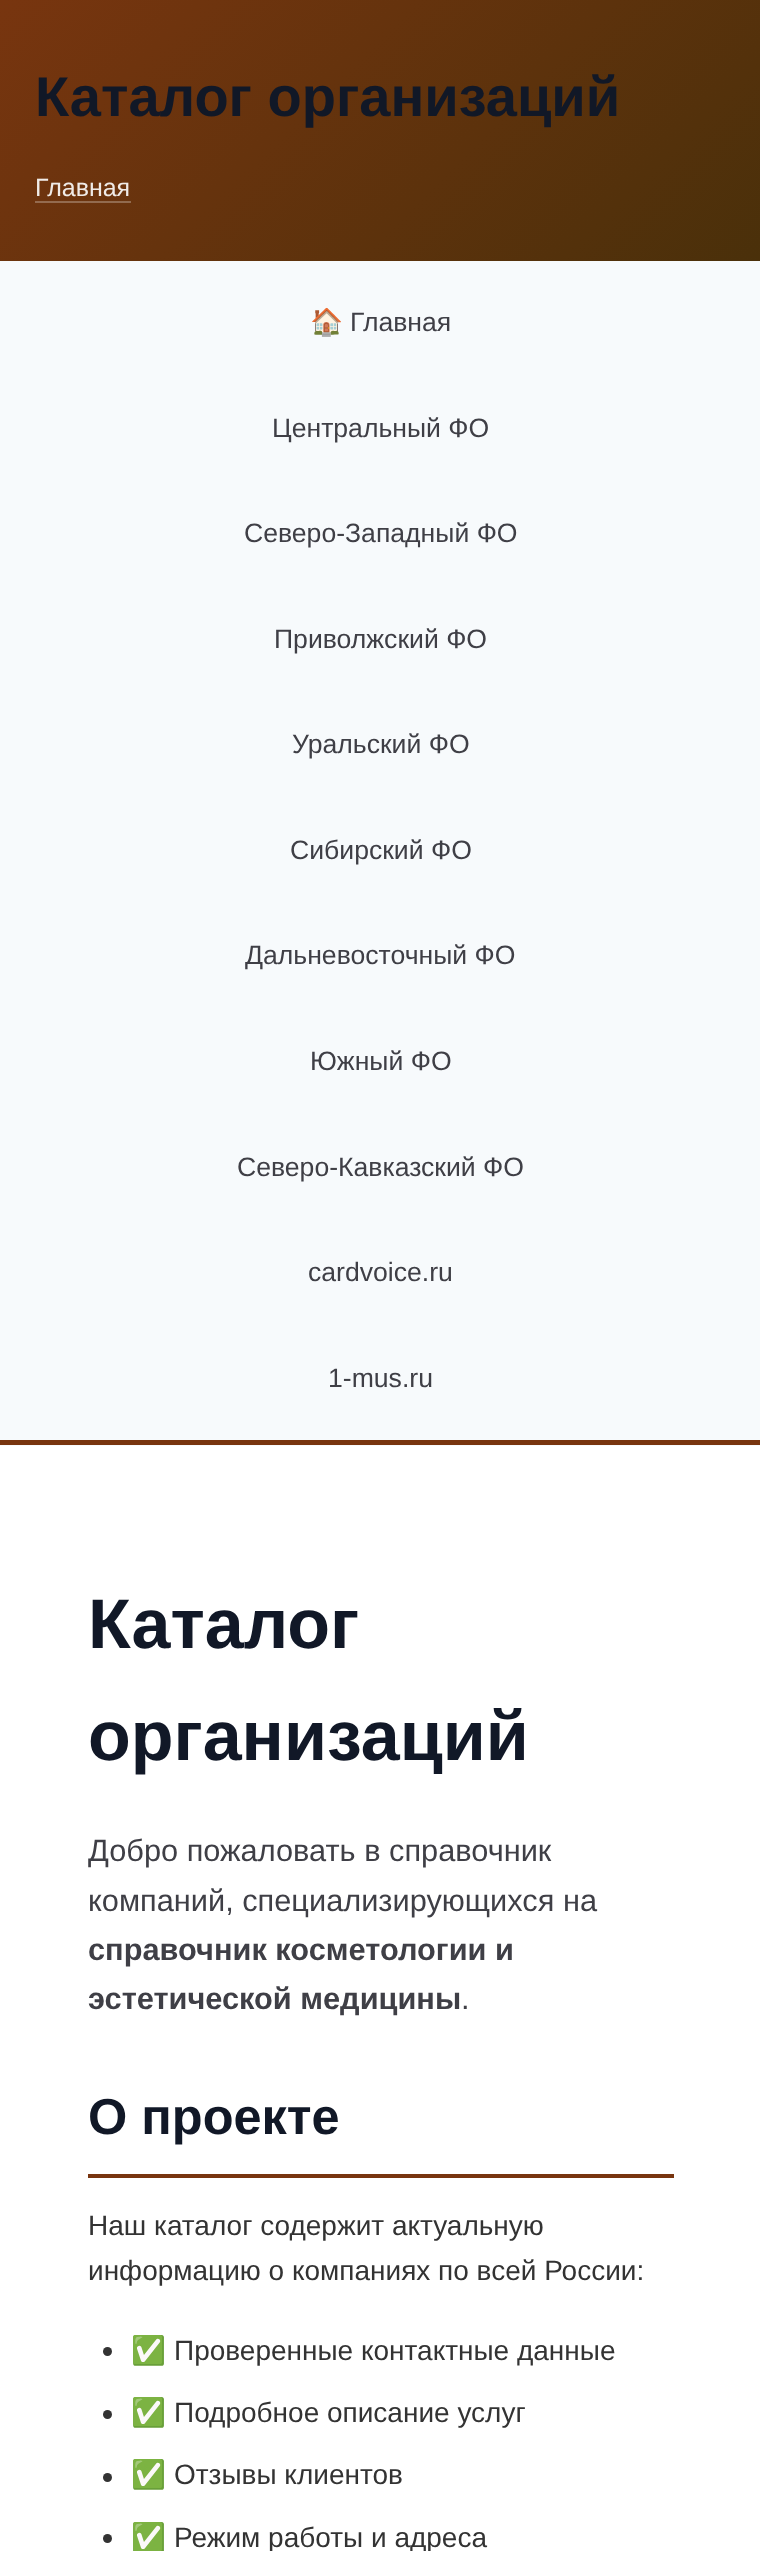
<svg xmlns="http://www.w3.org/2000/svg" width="760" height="2551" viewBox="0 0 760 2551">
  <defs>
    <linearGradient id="g1" gradientUnits="userSpaceOnUse" x1="125" y1="-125" x2="636" y2="386"><stop offset="0" stop-color="rgb(120,53,15)"/><stop offset="1" stop-color="rgb(74,48,10)"/></linearGradient>
    <linearGradient id="g2" gradientUnits="userSpaceOnUse" x1="125" y1="-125" x2="636" y2="386"><stop offset="0" stop-color="rgb(156,108,80)"/><stop offset="1" stop-color="rgb(123,104,76)"/></linearGradient>
  </defs>
  <rect width="100%" height="100%" fill="rgb(255,255,255)"/>
  <rect x="0" y="0" width="760" height="261" fill="url(#g1)"/>
  <rect x="35" y="201" width="96" height="2" fill="url(#g2)"/>
  <text x="35" y="116" font-family="Liberation Sans" font-size="56" font-weight="bold" fill="rgb(17,24,39)">Каталог организаций</text>
  <text x="35" y="196" font-family="Liberation Sans" font-size="25" fill="rgb(240,235,231)">Главная</text>
  <rect x="0" y="261" width="760" height="1185" fill="rgb(247,250,252)"/>
  <rect x="0" y="1440" width="760" height="5" fill="rgb(120,53,15)"/>
  <text x="310" y="331" font-family="Noto Color Emoji" font-size="26.6" fill="rgb(63,63,70)">🏠</text>
  <g font-family="Liberation Sans" font-size="26.6" fill="rgb(63,63,70)">
    <text x="350" y="331">Главная</text>
    <text x="272" y="437">Центральный ФО</text>
    <text x="244" y="542">Северо-Западный ФО</text>
    <text x="274" y="648">Приволжский ФО</text>
    <text x="292" y="753">Уральский ФО</text>
    <text x="290" y="859">Сибирский ФО</text>
    <text x="245" y="964">Дальневосточный ФО</text>
    <text x="310" y="1070">Южный ФО</text>
    <text x="237" y="1176">Северо-Кавказский ФО</text>
    <text x="308" y="1281">cardvoice.ru</text>
    <text x="328" y="1387">1-mus.ru</text>
  </g>
  <g font-family="Liberation Sans" font-size="70" font-weight="bold" fill="rgb(17,24,39)">
    <text>
      <tspan x="88" y="1648">Каталог</tspan>
      <tspan x="88" y="1760">организаций</tspan>
    </text>
  </g>
  <g font-family="Liberation Sans" font-size="30.75" fill="rgb(63,63,70)">
    <text>
      <tspan x="88" y="1861">Добро пожаловать в справочник</tspan>
      <tspan x="88" y="1911">компаний, специализирующихся на</tspan>
    </text>
  </g>
  <g font-family="Liberation Sans" font-size="30.75" font-weight="bold" fill="rgb(63,63,70)">
    <text>
      <tspan x="88" y="1960">справочник косметологии и</tspan>
      <tspan x="88" y="2009">эстетической медицины</tspan>
    </text>
  </g>
  <text x="461" y="2009" font-family="Liberation Sans" font-size="30.75" fill="rgb(63,63,70)">.</text>
  <rect x="88" y="2174" width="586" height="4" fill="rgb(120,53,15)"/>
  <text x="88" y="2134" font-family="Liberation Sans" font-size="50.5" font-weight="bold" fill="rgb(17,24,39)">О проекте</text>
  <g font-family="Liberation Sans" font-size="28" fill="rgb(51,51,51)">
    <text>
      <tspan x="88" y="2235">Наш каталог содержит актуальную</tspan>
      <tspan x="88" y="2280">информацию о компаниях по всей России:</tspan>
    </text>
  </g>
  <circle cx="107.5" cy="2351.5" r="4.5" fill="rgb(51,51,51)"/>
  <text x="131" y="2360" font-family="Noto Color Emoji" font-size="28" fill="rgb(51,51,51)">✅</text>
  <text x="174" y="2360" font-family="Liberation Sans" font-size="28" fill="rgb(51,51,51)">Проверенные контактные данные</text>
  <circle cx="107.5" cy="2414.5" r="4.5" fill="rgb(51,51,51)"/>
  <text x="131" y="2422" font-family="Noto Color Emoji" font-size="28" fill="rgb(51,51,51)">✅</text>
  <text x="174" y="2422" font-family="Liberation Sans" font-size="28" fill="rgb(51,51,51)">Подробное описание услуг</text>
  <circle cx="107.5" cy="2477.5" r="4.5" fill="rgb(51,51,51)"/>
  <text x="131" y="2484" font-family="Noto Color Emoji" font-size="28" fill="rgb(51,51,51)">✅</text>
  <text x="174" y="2484" font-family="Liberation Sans" font-size="28" fill="rgb(51,51,51)">Отзывы клиентов</text>
  <circle cx="107.5" cy="2538.5" r="4.5" fill="rgb(51,51,51)"/>
  <text x="131" y="2547" font-family="Noto Color Emoji" font-size="28" fill="rgb(51,51,51)">✅</text>
  <text x="174" y="2547" font-family="Liberation Sans" font-size="28" fill="rgb(51,51,51)">Режим работы и адреса</text>
</svg>
